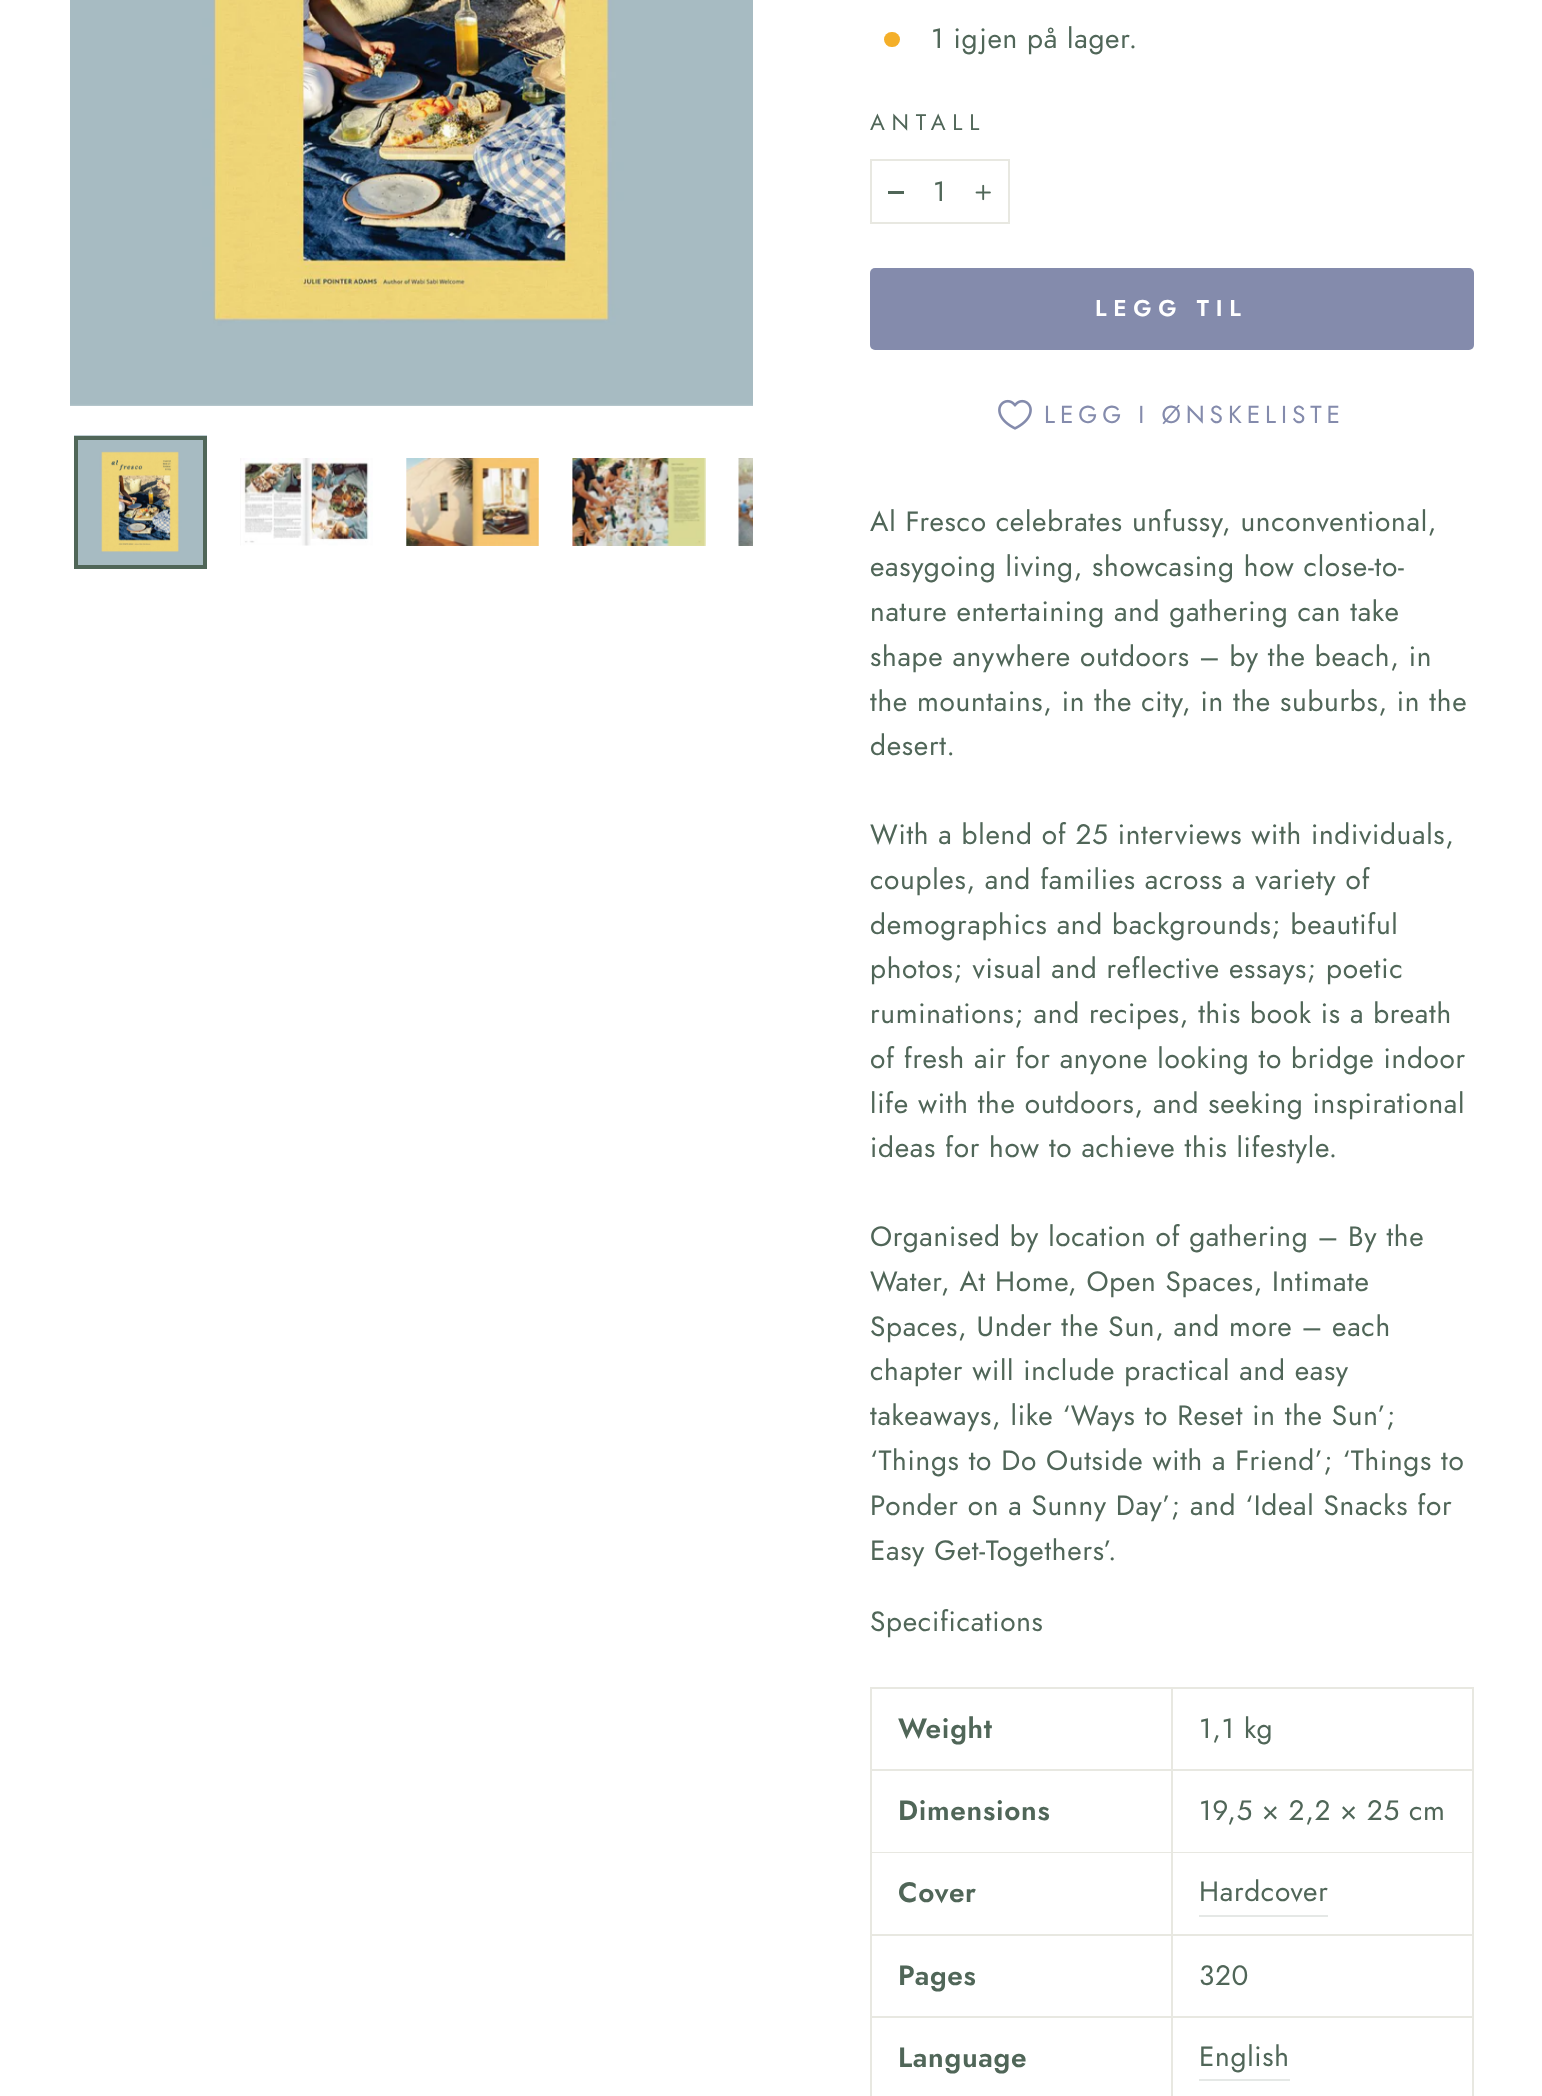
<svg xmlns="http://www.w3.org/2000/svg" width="1542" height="2096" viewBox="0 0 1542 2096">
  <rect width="100%" height="100%" fill="rgb(255,255,255)"/>
  <image x="70" y="0" width="683" height="406" href="pic1.png"/>
  <image x="74" y="435" width="133" height="130" href="pic2.png"/>
  <rect x="76" y="438" width="129" height="129" fill="none" stroke="rgb(80,102,88)" stroke-width="4"/>
  <image x="240" y="458" width="133" height="88" href="pic3.png"/>
  <image x="406" y="458" width="133" height="88" href="pic4.png"/>
  <image x="572" y="458" width="134" height="88" href="pic5.png"/>
  <image x="738" y="458" width="15" height="88" href="pic6.png"/>
  <rect x="884" y="32" width="16" height="15" rx="7.5" fill="rgb(244,175,41)"/>
  <text x="931" y="48" font-family="Jost" font-size="28" letter-spacing="0.7" fill="rgb(80,102,88)">1 igjen på lager.</text>
  <text x="870" y="130" font-family="Jost" font-size="22.5" letter-spacing="6.75" fill="rgb(80,102,88)">ANTALL</text>
  <rect x="871" y="160" width="138" height="63" fill="none" stroke="rgb(232,232,225)" stroke-width="2"/>
  <rect x="888" y="191" width="16" height="3" fill="rgb(80,102,88)"/>
  <text x="933" y="201" font-family="Jost" font-size="28" letter-spacing="0.7" fill="rgb(80,102,88)">1</text>
  <image x="975" y="184" width="16" height="17" href="pic7.png"/>
  <rect x="870" y="268" width="604" height="82" rx="5" fill="rgb(132,139,172)"/>
  <text x="1095" y="316" font-family="Jost" font-size="22.75" font-weight="600" letter-spacing="6.75" fill="rgb(255,255,255)">LEGG TIL</text>
  <image x="998" y="399" width="34" height="31" href="pic8.png"/>
  <text x="1044" y="423" font-family="Jost" font-size="24.5" letter-spacing="4.9" fill="rgb(132,139,172)">LEGG I ØNSKELISTE</text>
  <g font-family="Jost" font-size="28" letter-spacing="0.7" fill="rgb(80,102,88)">
    <text>
      <tspan x="870" y="531">Al Fresco celebrates unfussy, unconventional,</tspan>
      <tspan x="870" y="576">easygoing living, showcasing how close-to-</tspan>
      <tspan x="870" y="621">nature entertaining and gathering can take</tspan>
      <tspan x="870" y="666">shape anywhere outdoors – by the beach, in</tspan>
      <tspan x="870" y="711">the mountains, in the city, in the suburbs, in the</tspan>
      <tspan x="870" y="755">desert.</tspan>
    </text>
    <text>
      <tspan x="870" y="844">With a blend of 25 interviews with individuals,</tspan>
      <tspan x="870" y="889">couples, and families across a variety of</tspan>
      <tspan x="870" y="934">demographics and backgrounds; beautiful</tspan>
      <tspan x="870" y="978">photos; visual and reflective essays; poetic</tspan>
      <tspan x="870" y="1023">ruminations; and recipes, this book is a breath</tspan>
      <tspan x="870" y="1068">of fresh air for anyone looking to bridge indoor</tspan>
      <tspan x="870" y="1113">life with the outdoors, and seeking inspirational</tspan>
      <tspan x="870" y="1157">ideas for how to achieve this lifestyle.</tspan>
    </text>
    <text>
      <tspan x="870" y="1246">Organised by location of gathering – By the</tspan>
      <tspan x="870" y="1291">Water, At Home, Open Spaces, Intimate</tspan>
      <tspan x="870" y="1336">Spaces, Under the Sun, and more – each</tspan>
      <tspan x="870" y="1380">chapter will include practical and easy</tspan>
      <tspan x="870" y="1425">takeaways, like ‘Ways to Reset in the Sun’;</tspan>
      <tspan x="870" y="1470">‘Things to Do Outside with a Friend’; ‘Things to</tspan>
      <tspan x="870" y="1515">Ponder on a Sunny Day’; and ‘Ideal Snacks for</tspan>
      <tspan x="870" y="1560">Easy Get-Togethers’.</tspan>
    </text>
    <text x="870" y="1631">Specifications</text>
  </g>
  <rect x="870" y="1687" width="604" height="409" fill="rgb(232,232,225)"/>
  <rect x="872" y="1689" width="299" height="80" fill="rgb(255,255,255)"/>
  <text x="898" y="1738" font-family="Jost" font-size="28" font-weight="600" letter-spacing="0.7" fill="rgb(80,102,88)">Weight</text>
  <rect x="1173" y="1689" width="299" height="80" fill="rgb(255,255,255)"/>
  <text x="1199" y="1738" font-family="Jost" font-size="28" letter-spacing="0.7" fill="rgb(80,102,88)">1,1 kg</text>
  <rect x="872" y="1771" width="299" height="81" fill="rgb(255,255,255)"/>
  <text x="898" y="1820" font-family="Jost" font-size="28" font-weight="600" letter-spacing="0.7" fill="rgb(80,102,88)">Dimensions</text>
  <rect x="1173" y="1771" width="299" height="81" fill="rgb(255,255,255)"/>
  <text x="1199" y="1820" font-family="Jost" font-size="28" letter-spacing="0.7" fill="rgb(80,102,88)">19,5 × 2,2 × 25 cm</text>
  <rect x="872" y="1853" width="299" height="81" fill="rgb(255,255,255)"/>
  <text x="898" y="1902" font-family="Jost" font-size="28" font-weight="600" letter-spacing="0.7" fill="rgb(80,102,88)">Cover</text>
  <rect x="1173" y="1853" width="299" height="81" fill="rgb(255,255,255)"/>
  <rect x="1199" y="1915" width="129" height="2" fill="rgb(229,232,230)"/>
  <text x="1199" y="1901" font-family="Jost" font-size="28" letter-spacing="0.7" fill="rgb(80,102,88)">Hardcover</text>
  <rect x="872" y="1936" width="299" height="80" fill="rgb(255,255,255)"/>
  <text x="898" y="1985" font-family="Jost" font-size="28" font-weight="600" letter-spacing="0.7" fill="rgb(80,102,88)">Pages</text>
  <rect x="1173" y="1936" width="299" height="80" fill="rgb(255,255,255)"/>
  <text x="1199" y="1985" font-family="Jost" font-size="28" letter-spacing="0.7" fill="rgb(80,102,88)">320</text>
  <rect x="872" y="2018" width="299" height="78" fill="rgb(255,255,255)"/>
  <text x="898" y="2067" font-family="Jost" font-size="28" font-weight="600" letter-spacing="0.7" fill="rgb(80,102,88)">Language</text>
  <rect x="1173" y="2018" width="299" height="78" fill="rgb(255,255,255)"/>
  <rect x="1199" y="2079" width="91" height="2" fill="rgb(229,232,230)"/>
  <text x="1199" y="2066" font-family="Jost" font-size="28" letter-spacing="0.7" fill="rgb(80,102,88)">English</text>
</svg>
